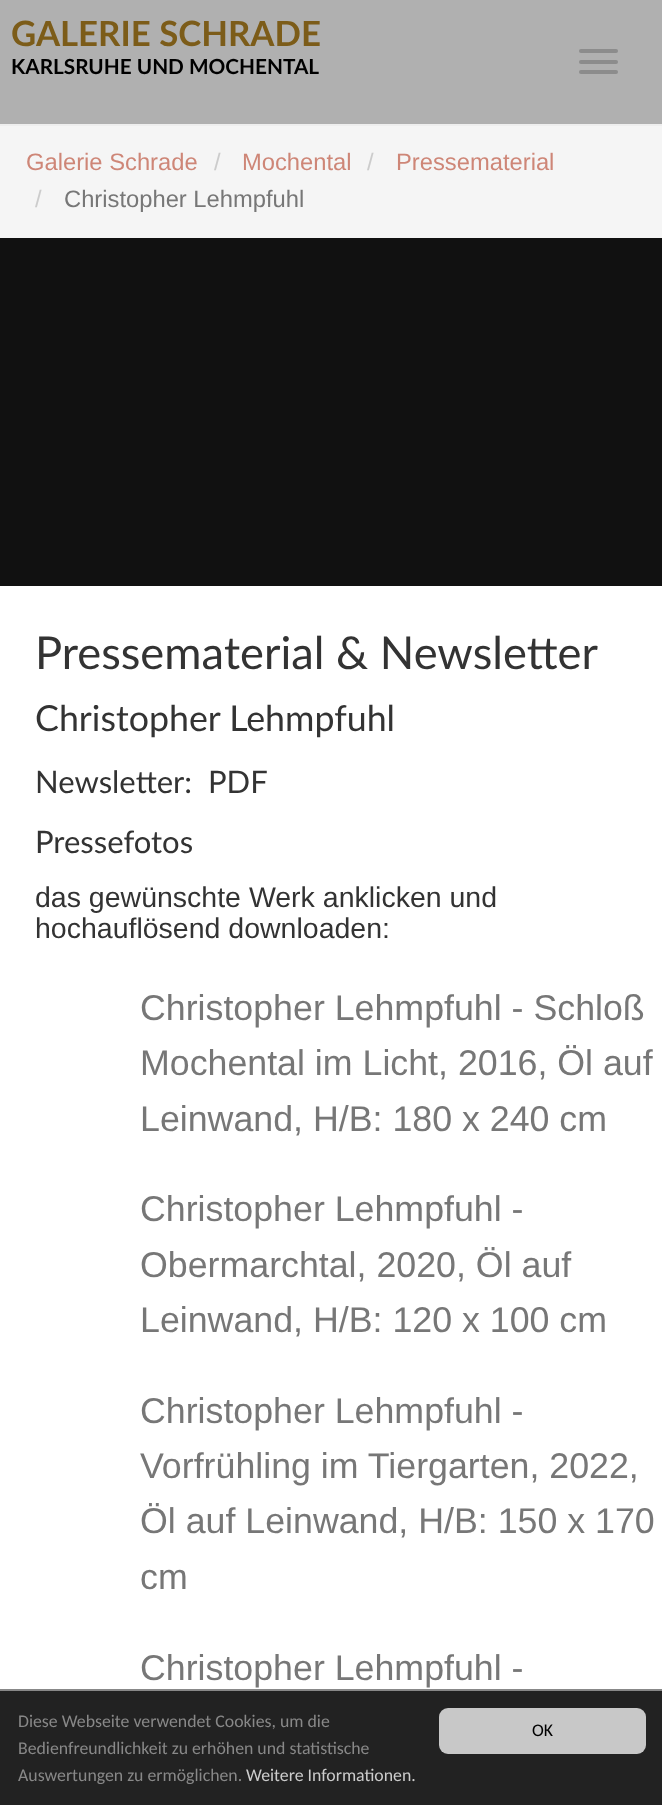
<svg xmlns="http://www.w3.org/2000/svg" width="662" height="1805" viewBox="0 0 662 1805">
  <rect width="100%" height="100%" fill="rgb(17,17,17)"/>
  <rect x="0" y="0" width="662" height="124" fill="rgb(176,176,176)"/>
  <rect x="0" y="124" width="662" height="2" fill="rgb(238,238,238)"/>
  <text x="11" y="46" font-family="Lato" font-size="34.75" font-weight="bold" fill="rgb(124,92,25)">GALERIE SCHRADE</text>
  <text x="11" y="74" font-family="Lato" font-size="20.75" font-weight="bold" fill="rgb(0,0,0)">KARLSRUHE UND MOCHENTAL</text>
  <rect x="579" y="49" width="39" height="4" rx="2" fill="rgb(140,140,140)"/>
  <rect x="579" y="60" width="39" height="4" rx="2" fill="rgb(140,140,140)"/>
  <rect x="579" y="70" width="39" height="4" rx="2" fill="rgb(140,140,140)"/>
  <rect x="0" y="126" width="662" height="112" fill="rgb(245,245,245)"/>
  <text x="26" y="170" font-family="Liberation Sans" font-size="23.75" fill="rgb(206,134,119)">Galerie Schrade</text>
  <text x="214" y="170" font-family="Liberation Sans" font-size="23.75" fill="rgb(204,204,204)">/</text>
  <text x="242" y="170" font-family="Liberation Sans" font-size="23.75" fill="rgb(206,134,119)">Mochental</text>
  <text x="367" y="170" font-family="Liberation Sans" font-size="23.75" fill="rgb(204,204,204)">/</text>
  <text x="396" y="170" font-family="Liberation Sans" font-size="23.75" fill="rgb(206,134,119)">Pressematerial</text>
  <text x="35" y="207" font-family="Liberation Sans" font-size="23.75" fill="rgb(204,204,204)">/</text>
  <text x="64" y="207" font-family="Liberation Sans" font-size="23.75" fill="rgb(119,119,119)">Christopher Lehmpfuhl</text>
  <rect x="0" y="586" width="662" height="1103" fill="rgb(255,255,255)"/>
  <text x="35" y="669" font-family="Lato" font-size="45.25" fill="rgb(51,51,51)">Pressematerial &amp; Newsletter</text>
  <text x="35" y="731" font-family="Lato" font-size="35.75" fill="rgb(51,51,51)">Christopher Lehmpfuhl</text>
  <g font-family="Lato" font-size="31" fill="rgb(51,51,51)">
    <text xml:space="preserve"><tspan x="35" y="793">Newsletter:  PDF</tspan><tspan x="35" y="853">Pressefotos</tspan></text>
  </g>
  <g font-family="Liberation Sans" font-size="28.5" fill="rgb(51,51,51)">
    <text>
      <tspan x="35" y="907">das gewünschte Werk anklicken und</tspan>
      <tspan x="35" y="938">hochauflösend downloaden:</tspan>
    </text>
  </g>
  <g font-family="Liberation Sans" font-size="35.75" fill="rgb(119,119,119)">
    <text>
      <tspan x="140" y="1020">Christopher Lehmpfuhl - Schloß</tspan>
      <tspan x="140" y="1075">Mochental im Licht, 2016, Öl auf</tspan>
      <tspan x="140" y="1131">Leinwand, H/B: 180 x 240 cm</tspan>
    </text>
    <text>
      <tspan x="140" y="1221">Christopher Lehmpfuhl -</tspan>
      <tspan x="140" y="1277">Obermarchtal, 2020, Öl auf</tspan>
      <tspan x="140" y="1332">Leinwand, H/B: 120 x 100 cm</tspan>
    </text>
    <text>
      <tspan x="140" y="1423">Christopher Lehmpfuhl -</tspan>
      <tspan x="140" y="1478">Vorfrühling im Tiergarten, 2022,</tspan>
      <tspan x="140" y="1533">Öl auf Leinwand, H/B: 150 x 170</tspan>
      <tspan x="140" y="1589">cm</tspan>
    </text>
    <text x="140" y="1680">Christopher Lehmpfuhl -</text>
  </g>
  <rect x="0" y="1691" width="662" height="114" fill="rgb(34,34,34)"/>
  <rect x="0" y="1689" width="662" height="2" fill="rgb(136,136,136)"/>
  <g font-family="Carlito" font-size="17.8" fill="rgb(136,136,136)">
    <text>
      <tspan x="18" y="1727">Diese Webseite verwendet Cookies, um die</tspan>
      <tspan x="18" y="1754">Bedienfreundlichkeit zu erhöhen und statistische</tspan>
      <tspan x="18" y="1781">Auswertungen zu ermöglichen.</tspan>
    </text>
  </g>
  <text x="246" y="1781" font-family="Carlito" font-size="17.8" fill="rgb(204,204,204)">Weitere Informationen.</text>
  <rect x="439" y="1708" width="207" height="46" rx="9" fill="rgb(200,200,200)"/>
  <text x="532" y="1736" font-family="Carlito" font-size="17.8" fill="rgb(0,0,0)">OK</text>
</svg>
